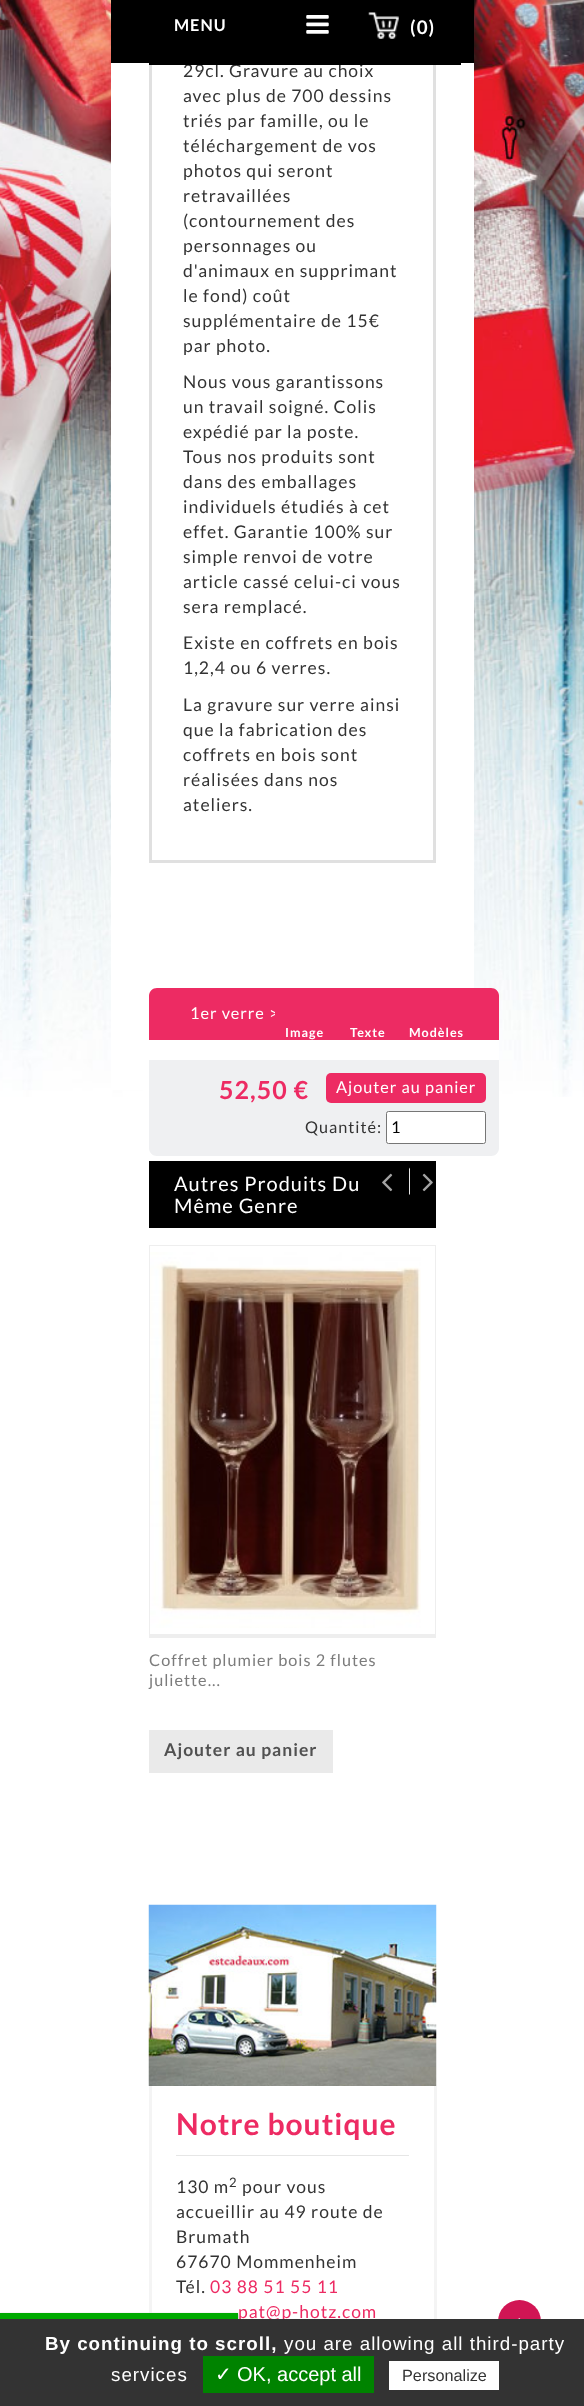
<svg xmlns="http://www.w3.org/2000/svg" width="584" height="2406" viewBox="0 0 584 2406">
  <rect width="100%" height="100%" fill="rgb(255,255,255)"/>
  <image x="0" y="0" width="584" height="1097" href="pic1.png"/>
  <rect x="111" y="63" width="363" height="1027" fill="rgb(255,255,255)"/>
  <rect x="150.5" y="-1.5" width="284" height="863" fill="none" stroke="rgb(224,224,224)" stroke-width="3"/>
  <rect x="111" y="0" width="363" height="63" fill="rgb(0,0,0)"/>
  <text x="183" y="77" font-family="Lato" font-size="17.5" letter-spacing="1" fill="rgb(51,51,51)">29cl. Gravure au choix</text>
  <rect x="149" y="63" width="312" height="2" fill="rgb(0,0,0)"/>
  <text x="174" y="31" font-family="Lato" font-size="16.25" font-weight="bold" letter-spacing="1" fill="rgb(255,255,255)">MENU</text>
  <image x="306" y="15" width="23" height="19" href="pic2.png"/>
  <image x="368" y="12" width="31" height="27" href="pic3.png"/>
  <text x="410" y="34" font-family="Lato" font-size="18.75" font-weight="bold" letter-spacing="1" fill="rgb(255,255,255)">(0)</text>
  <g font-family="Lato" font-size="17.5" letter-spacing="1" fill="rgb(51,51,51)">
    <text>
      <tspan x="183" y="102">avec plus de 700 dessins</tspan>
      <tspan x="183" y="127">triés par famille, ou le</tspan>
      <tspan x="183" y="152">téléchargement de vos</tspan>
      <tspan x="183" y="177">photos qui seront</tspan>
      <tspan x="183" y="202">retravaillées</tspan>
      <tspan x="183" y="227">(contournement des</tspan>
      <tspan x="183" y="252">personnages ou</tspan>
      <tspan x="183" y="277">d'animaux en supprimant</tspan>
      <tspan x="183" y="302">le fond) coût</tspan>
      <tspan x="183" y="327">supplémentaire de 15€</tspan>
      <tspan x="183" y="352">par photo.</tspan>
    </text>
    <text>
      <tspan x="183" y="388">Nous vous garantissons</tspan>
      <tspan x="183" y="413">un travail soigné. Colis</tspan>
      <tspan x="183" y="438">expédié par la poste.</tspan>
      <tspan x="183" y="463">Tous nos produits sont</tspan>
      <tspan x="183" y="488">dans des emballages</tspan>
      <tspan x="183" y="513">individuels étudiés à cet</tspan>
      <tspan x="183" y="538">effet. Garantie 100% sur</tspan>
      <tspan x="183" y="563">simple renvoi de votre</tspan>
      <tspan x="183" y="588">article cassé celui-ci vous</tspan>
      <tspan x="183" y="613">sera remplacé.</tspan>
    </text>
    <text>
      <tspan x="183" y="649">Existe en coffrets en bois</tspan>
      <tspan x="183" y="674">1,2,4 ou 6 verres.</tspan>
    </text>
    <text>
      <tspan x="183" y="711">La gravure sur verre ainsi</tspan>
      <tspan x="183" y="736">que la fabrication des</tspan>
      <tspan x="183" y="761">coffrets en bois sont</tspan>
      <tspan x="183" y="786">réalisées dans nos</tspan>
      <tspan x="183" y="811">ateliers.</tspan>
    </text>
  </g>
  <path d="M157 988H491C495.5 988 499 991.5 499 996V1040H149V996C149 991.5 152.5 988 157 988Z" fill="rgb(237,43,99)"/>
  <text x="190" y="1019" font-family="Lato" font-size="16.25" letter-spacing="1" fill="rgb(255,255,255)">1er verre &gt;</text>
  <rect x="275" y="1012" width="3" height="4" fill="rgb(237,43,99)"/>
  <g font-family="Lato" font-size="12.5" font-weight="bold" letter-spacing="1" fill="rgb(255,255,255)">
    <text x="285" y="1037">Image</text>
    <text x="350" y="1037">Texte</text>
    <text x="409" y="1037">Modèles</text>
  </g>
  <rect x="474" y="1040" width="25" height="20" fill="rgb(255,255,255)"/>
  <path d="M149 1060H499V1148C499 1152.5 495.5 1156 491 1156H157C152.5 1156 149 1152.5 149 1148Z" fill="rgb(239,240,242)"/>
  <text x="219" y="1099" font-family="Lato" font-size="25" font-weight="bold" letter-spacing="1" fill="rgb(237,43,99)">52,50 €</text>
  <rect x="326" y="1073" width="160" height="30" rx="5" fill="rgb(237,43,99)"/>
  <text x="336" y="1093" font-family="Lato" font-size="16.25" letter-spacing="1" fill="rgb(255,255,255)">Ajouter au panier</text>
  <text x="305" y="1133" font-family="Lato" font-size="16.25" letter-spacing="1" fill="rgb(51,51,51)">Quantité:</text>
  <rect x="386.5" y="1111.5" width="99" height="32" rx="2" fill="rgb(255,255,255)" stroke="rgb(118,118,118)"/>
  <text x="391" y="1133" font-family="Lato" font-size="16.25" fill="rgb(0,0,0)">1</text>
  <rect x="149" y="1161" width="287" height="67" fill="rgb(0,0,0)"/>
  <g font-family="Lato" font-size="20" letter-spacing="1" fill="rgb(255,255,255)">
    <text>
      <tspan x="174" y="1191">Autres Produits Du</tspan>
      <tspan x="174" y="1213">Même Genre</tspan>
    </text>
  </g>
  <path d="M410 1167.5V1195L409 1194V1169Z" fill="rgb(229,229,229)"/>
  <image x="382" y="1173" width="11" height="19" href="pic4.png"/>
  <image x="422" y="1173" width="11" height="19" href="pic5.png"/>
  <rect x="149" y="1245" width="287" height="1" fill="rgb(238,238,238)"/>
  <rect x="435" y="1245" width="1" height="393" fill="rgb(238,238,238)"/>
  <rect x="149" y="1634" width="287" height="4" fill="rgb(238,238,238)"/>
  <rect x="149" y="1245" width="1" height="393" fill="rgb(238,238,238)"/>
  <image x="150" y="1252" width="271" height="376" href="pic6.png"/>
  <g font-family="Lato" font-size="16.25" letter-spacing="1" fill="rgb(124,124,124)">
    <text>
      <tspan x="149" y="1666">Coffret plumier bois 2 flutes</tspan>
      <tspan x="149" y="1686">juliette...</tspan>
    </text>
  </g>
  <rect x="149" y="1730" width="184" height="43" fill="rgb(234,234,234)"/>
  <text x="164" y="1756" font-family="Lato" font-size="17.5" font-weight="bold" letter-spacing="1" fill="rgb(81,81,81)">Ajouter au panier</text>
  <image x="148" y="1904" width="289" height="182" href="pic7.png"/>
  <rect x="434" y="2086" width="3" height="233" fill="rgb(244,244,244)"/>
  <rect x="149" y="2086" width="3" height="227" fill="rgb(244,244,244)"/>
  <rect x="176" y="2155" width="233" height="1" fill="rgb(230,230,230)"/>
  <text x="176" y="2135" font-family="Lato" font-size="30" font-weight="bold" letter-spacing="1" fill="rgb(237,43,99)">Notre boutique</text>
  <text x="176" y="2193" font-family="Lato" font-size="17.5" letter-spacing="1" fill="rgb(51,51,51)">130 m</text>
  <text x="229" y="2187" font-family="Lato" font-size="13" letter-spacing="1" fill="rgb(51,51,51)">2</text>
  <g font-family="Lato" font-size="17.5" letter-spacing="1" fill="rgb(51,51,51)">
    <text x="242" y="2193">pour vous</text>
    <text>
      <tspan x="176" y="2218">accueillir au 49 route de</tspan>
      <tspan x="176" y="2243">Brumath</tspan>
      <tspan x="176" y="2268">67670 Mommenheim</tspan>
      <tspan x="176" y="2293">Tél.</tspan>
    </text>
  </g>
  <g font-family="Lato" font-size="17.5" letter-spacing="1" fill="rgb(237,43,99)">
    <text x="210" y="2293">03 88 51 55 11</text>
    <text x="238" y="2318">pat@p-hotz.com</text>
  </g>
  <rect x="498" y="2300" width="43" height="44" rx="21.5" fill="rgb(209,21,84)"/>
  <image x="518" y="2318" width="3" height="1" href="pic8.png"/>
  <rect x="0" y="2314" width="238" height="6" fill="rgb(85,85,85)" filter="blur(1px)"/>
  <rect x="0" y="2313" width="238" height="6" fill="rgb(255,255,255)" filter="blur(1px)"/>
  <rect x="0" y="2313" width="238" height="6" fill="rgb(0,170,0)"/>
  <rect x="0" y="2319" width="584" height="87" fill="rgb(51,51,51)"/>
  <text x="45" y="2350" font-family="Liberation Sans" font-size="18.75" font-weight="bold" letter-spacing="1" fill="rgb(255,255,255)">By continuing to scroll,</text>
  <g font-family="Liberation Sans" font-size="18.75" letter-spacing="1" fill="rgb(255,255,255)">
    <text x="284" y="2350">you are allowing all third-party</text>
    <text x="111" y="2381">services</text>
  </g>
  <rect x="203" y="2356" width="171" height="37" fill="rgb(0,131,0)"/>
  <text x="215" y="2381" font-family="DejaVu Sans" font-size="20" fill="rgb(255,255,255)">✓</text>
  <text x="237" y="2381" font-family="Liberation Sans" font-size="20" fill="rgb(255,255,255)">OK, accept all</text>
  <rect x="389" y="2361" width="110" height="29" fill="rgb(255,255,255)"/>
  <text x="402" y="2381" font-family="Liberation Sans" font-size="16.25" fill="rgb(51,51,51)">Personalize</text>
</svg>
